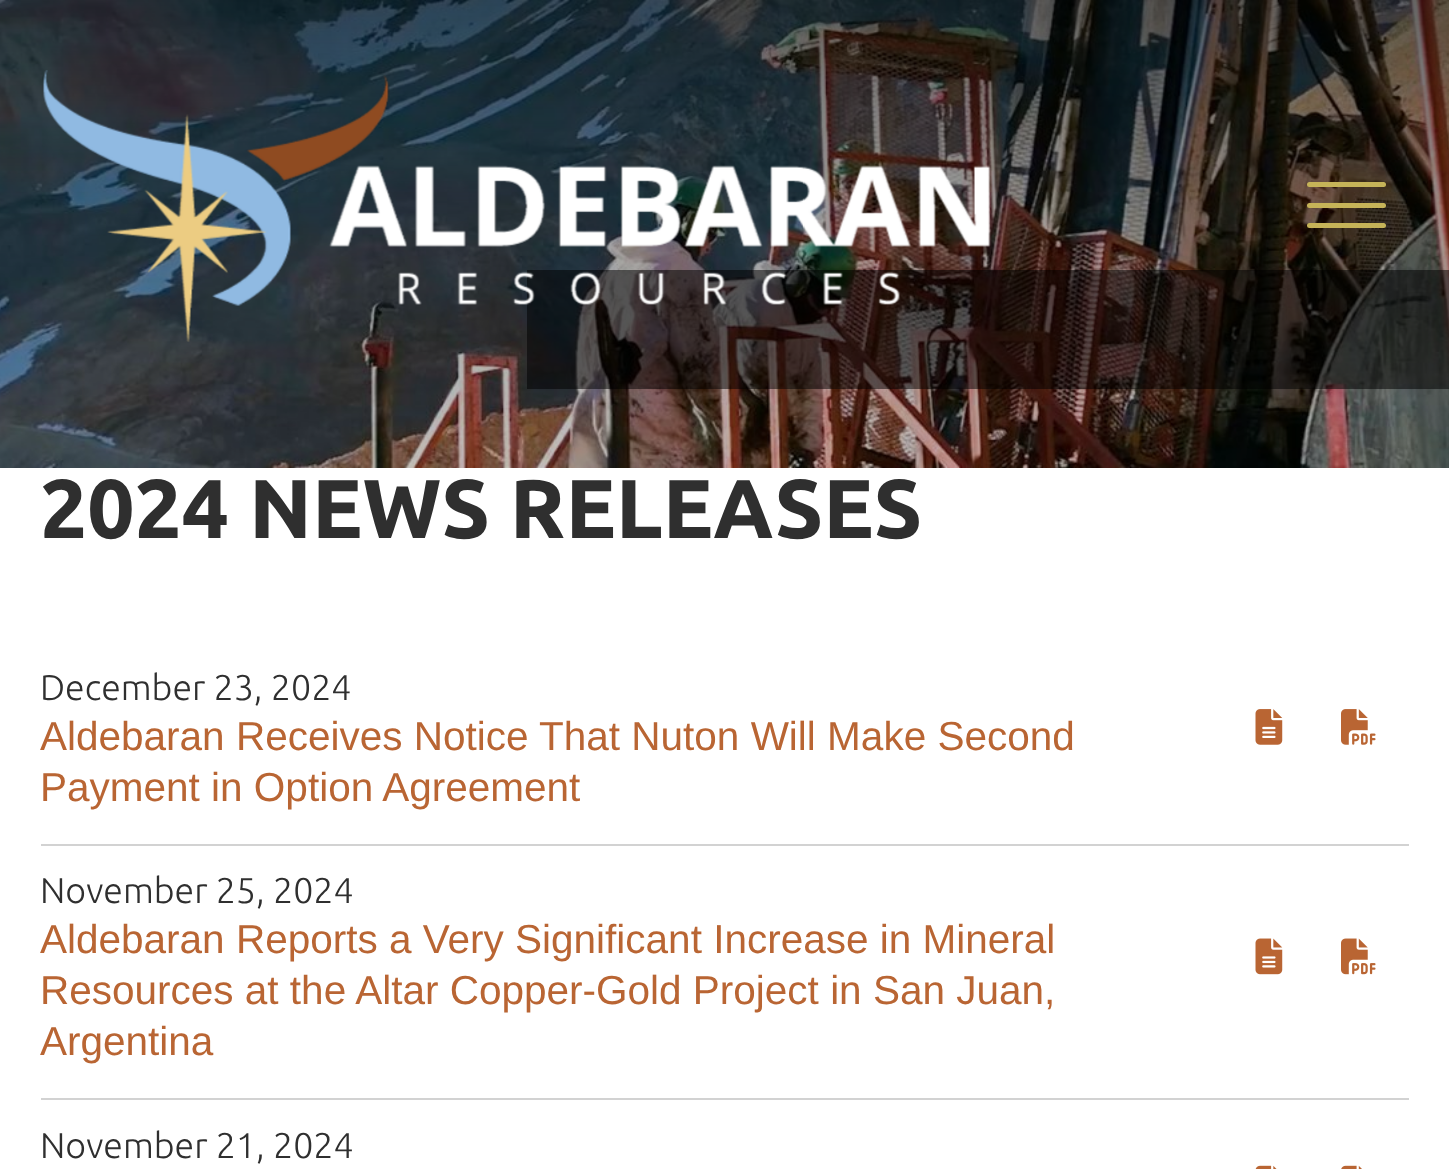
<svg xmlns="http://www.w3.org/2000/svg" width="1449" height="1169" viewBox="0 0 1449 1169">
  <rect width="100%" height="100%" fill="rgb(255,255,255)"/>
  <image x="0" y="0" width="1449" height="468" href="pic2.png"/>
  <rect x="527" y="270" width="922" height="119" fill="rgba(0,0,0,0.51)"/>
  <image x="43" y="70" width="948" height="272" href="pic1.png"/>
  <rect x="1307" y="182" width="79" height="5" rx="2.5" fill="rgb(197,179,88)"/>
  <rect x="1307" y="203" width="79" height="5" rx="2.5" fill="rgb(197,179,88)"/>
  <rect x="1307" y="223" width="79" height="5" rx="2.5" fill="rgb(197,179,88)"/>
  <text x="40" y="538" font-family="Ubuntu" font-size="83.25" font-weight="bold" fill="rgb(47,47,47)">2024 NEWS RELEASES</text>
  <rect x="41" y="844" width="1368" height="2" fill="rgb(210,210,210)"/>
  <text x="40" y="700" font-family="Ubuntu" font-size="35.75" font-weight="300" fill="rgb(47,47,47)">December 23, 2024</text>
  <g font-family="Liberation Sans" font-size="40.5" fill="rgb(185,101,51)">
    <text>
      <tspan x="40" y="750">Aldebaran Receives Notice That Nuton Will Make Second</tspan>
      <tspan x="40" y="801">Payment in Option Agreement</tspan>
    </text>
  </g>
  <image x="1255" y="709" width="28" height="36" href="pic3.png"/>
  <image x="1341" y="709" width="35" height="36" href="pic4.png"/>
  <rect x="41" y="1098" width="1368" height="2" fill="rgb(210,210,210)"/>
  <text x="40" y="903" font-family="Ubuntu" font-size="35.75" font-weight="300" fill="rgb(47,47,47)">November 25, 2024</text>
  <g font-family="Liberation Sans" font-size="40.5" fill="rgb(185,101,51)">
    <text>
      <tspan x="40" y="953">Aldebaran Reports a Very Significant Increase in Mineral</tspan>
      <tspan x="40" y="1004">Resources at the Altar Copper-Gold Project in San Juan,</tspan>
      <tspan x="40" y="1055">Argentina</tspan>
    </text>
  </g>
  <image x="1255" y="938" width="28" height="37" href="pic5.png"/>
  <image x="1341" y="938" width="35" height="37" href="pic6.png"/>
  <text x="40" y="1158" font-family="Ubuntu" font-size="35.75" font-weight="300" fill="rgb(47,47,47)">November 21, 2024</text>
  <image x="1255" y="1165" width="22" height="4" href="pic7.png"/>
  <image x="1341" y="1165" width="21" height="4" href="pic8.png"/>
</svg>
